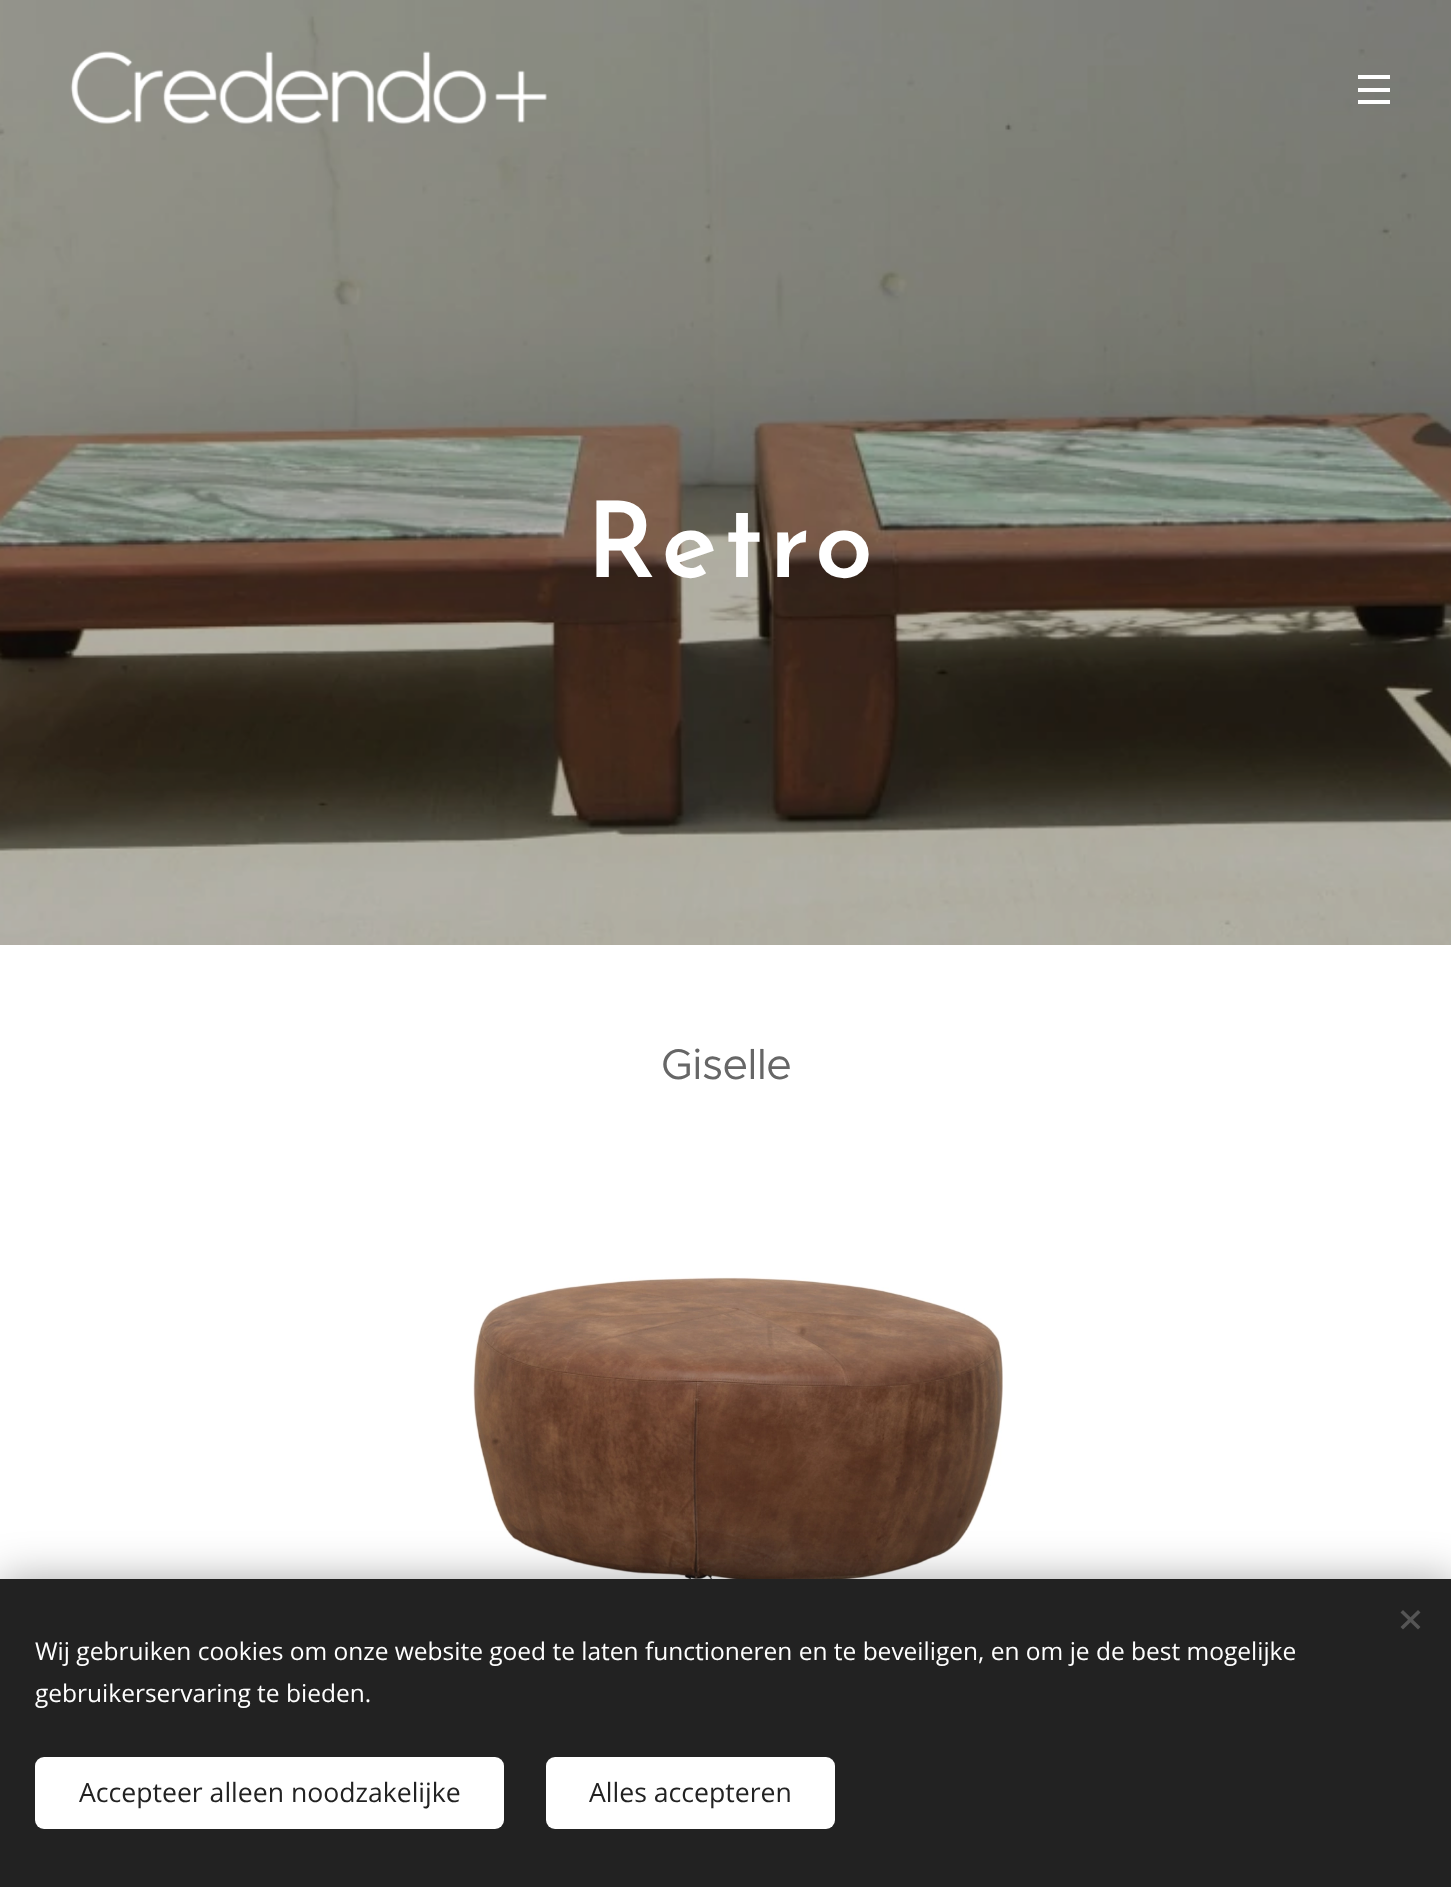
<svg xmlns="http://www.w3.org/2000/svg" width="1451" height="1887" viewBox="0 0 1451 1887">
  <rect width="100%" height="100%" fill="rgb(255,255,255)"/>
  <image x="0" y="0" width="1451" height="945" href="pic2.png"/>
  <image x="70" y="51" width="477" height="73" href="pic1.png"/>
  <rect x="1358" y="88" width="32" height="4" fill="rgb(255,255,255)"/>
  <rect x="1358" y="75" width="32" height="4" fill="rgb(255,255,255)"/>
  <rect x="1358" y="100" width="32" height="4" fill="rgb(255,255,255)"/>
  <text x="586" y="577" font-family="Josefin Sans" font-size="105" font-weight="600" letter-spacing="6.5" fill="rgb(255,255,255)">Retro</text>
  <text x="661" y="1079" font-family="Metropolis" font-size="43" letter-spacing="-0.5" fill="rgb(102,102,102)">Giselle</text>
  <image x="473" y="1277" width="530" height="302" href="pic3.png"/>
  <rect x="0" y="1579" width="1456" height="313" fill="rgba(0,0,0,0.33)" filter="blur(22px)"/>
  <rect x="0" y="1579" width="1451" height="308" fill="rgb(34,34,34)"/>
  <path d="M1400.5 1627L1418 1610L1420.5 1612.5L1403 1629.5Z" fill="rgb(85,85,85)"/>
  <path d="M1403 1610L1420.5 1627L1418 1629.5L1400.5 1612.5Z" fill="rgb(85,85,85)"/>
  <g font-family="Open Sans" font-size="24.5" fill="rgb(255,255,255)">
    <text>
      <tspan x="35" y="1660">Wij gebruiken cookies om onze website goed te laten functioneren en te beveiligen, en om je de best mogelijke</tspan>
      <tspan x="35" y="1702">gebruikerservaring te bieden.</tspan>
    </text>
  </g>
  <rect x="35" y="1757" width="469" height="72" rx="9" fill="rgb(255,255,255)"/>
  <text x="79" y="1802" font-family="Open Sans" font-size="26.6" fill="rgb(34,34,34)">Accepteer alleen noodzakelijke</text>
  <rect x="546" y="1757" width="289" height="72" rx="9" fill="rgb(255,255,255)"/>
  <text x="589" y="1802" font-family="Open Sans" font-size="26.6" fill="rgb(34,34,34)">Alles accepteren</text>
</svg>
